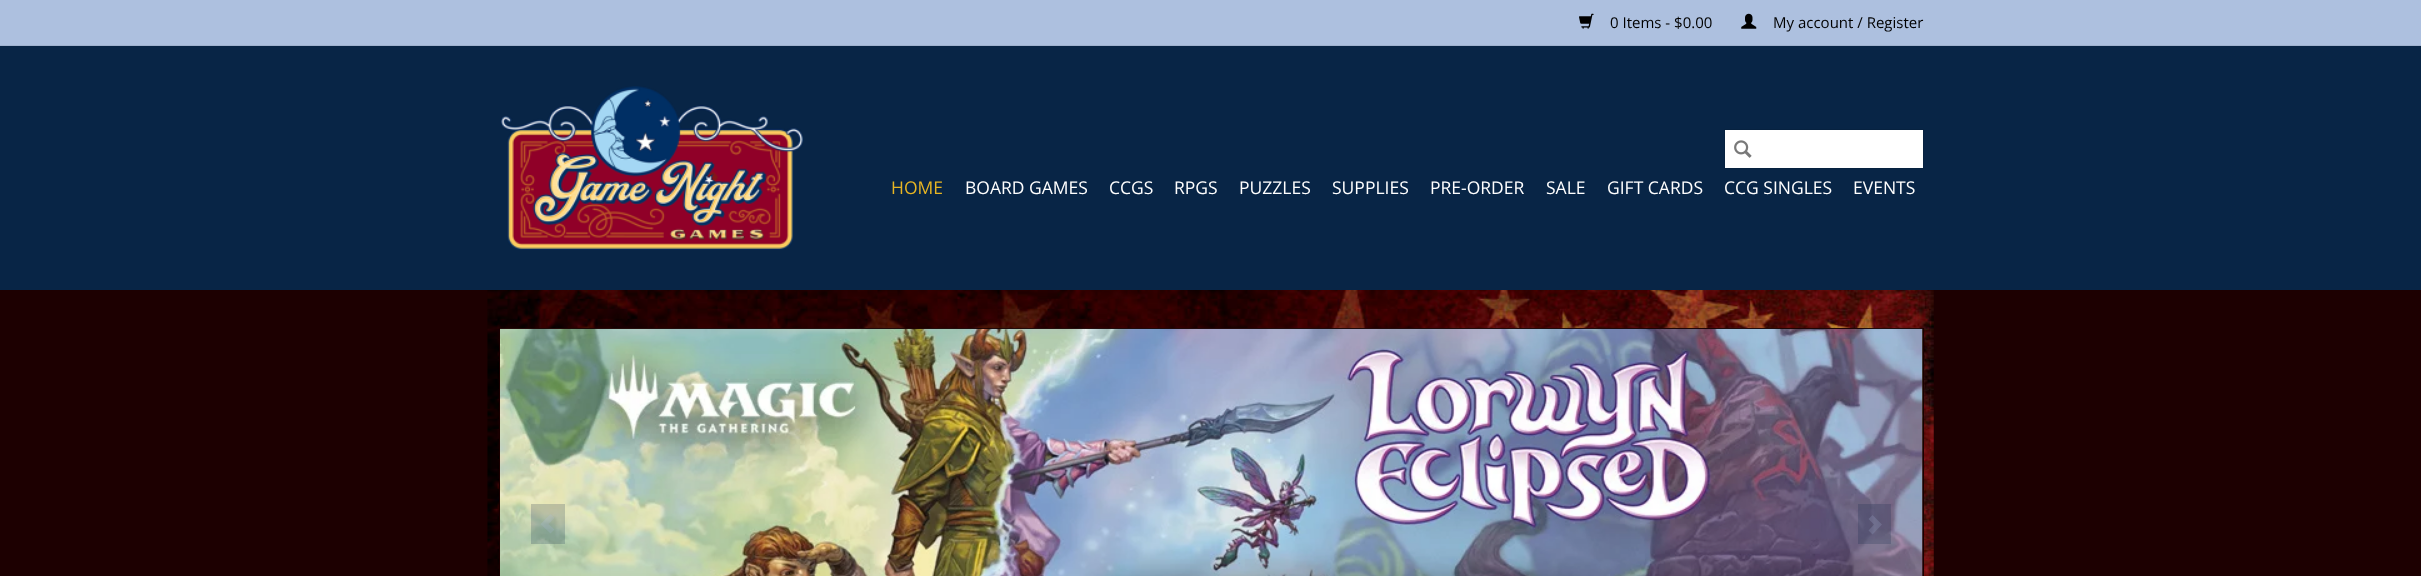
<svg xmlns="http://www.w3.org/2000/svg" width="2421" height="576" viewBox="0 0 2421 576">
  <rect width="100%" height="100%" fill="rgb(29,0,1)"/>
  <image x="487" y="290" width="1447" height="286" href="pic1.png"/>
  <rect x="0" y="46" width="2421" height="244" fill="rgb(8,37,70)"/>
  <rect x="0" y="0" width="2421" height="45" fill="rgb(173,192,223)"/>
  <rect x="0" y="45" width="2421" height="1" fill="rgb(160,178,207)"/>
  <image x="1579" y="13" width="15" height="16" href="pic2.png"/>
  <text x="1610" y="28" font-family="Open Sans" font-size="15" fill="rgb(0,0,0)">0 Items - $0.00</text>
  <image x="1741" y="13" width="16" height="16" href="pic3.png"/>
  <text x="1773" y="28" font-family="Open Sans" font-size="15" fill="rgb(0,0,0)">My account / Register</text>
  <image x="500" y="86" width="304" height="164" href="pic4.png"/>
  <rect x="1724.5" y="129.5" width="199" height="39" fill="rgb(255,255,255)" stroke="rgb(7,34,64)"/>
  <image x="1734" y="140" width="18" height="18" href="pic5.png"/>
  <text x="891" y="194" font-family="Open Sans" font-size="17.5" fill="rgb(231,181,35)">HOME</text>
  <g font-family="Open Sans" font-size="17.5" fill="rgb(255,255,255)">
    <text x="965" y="194">BOARD GAMES</text>
    <text x="1109" y="194">CCGS</text>
    <text x="1174" y="194">RPGS</text>
    <text x="1239" y="194">PUZZLES</text>
    <text x="1332" y="194">SUPPLIES</text>
    <text x="1430" y="194">PRE-ORDER</text>
    <text x="1546" y="194">SALE</text>
    <text x="1607" y="194">GIFT CARDS</text>
    <text x="1724" y="194">CCG SINGLES</text>
    <text x="1853" y="194">EVENTS</text>
  </g>
  <rect x="499.5" y="328.5" width="1424" height="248" fill="none" stroke="rgb(26,0,0)"/>
  <rect x="1922" y="329" width="1" height="247" fill="rgb(28,0,0)"/>
  <image x="500" y="328" width="1423" height="248" href="pic6.png"/>
  <image x="1922" y="329" width="1" height="247" href="pic7.png"/>
  <rect x="531" y="504" width="34" height="40" fill="rgba(8,37,70,0.2)"/>
  <path d="M540.5 524L550.5 533.5L554.5 529.5L548.5 524L554.5 518L550.5 514Z" fill="rgba(173,192,223,0.2)"/>
  <rect x="1858" y="504" width="33" height="40" fill="rgba(8,37,70,0.2)"/>
  <path d="M1868.5 530.5L1874 524.5L1868.5 519L1872.5 515L1882 524.5L1872.5 534.5Z" fill="rgba(173,192,223,0.2)"/>
</svg>
